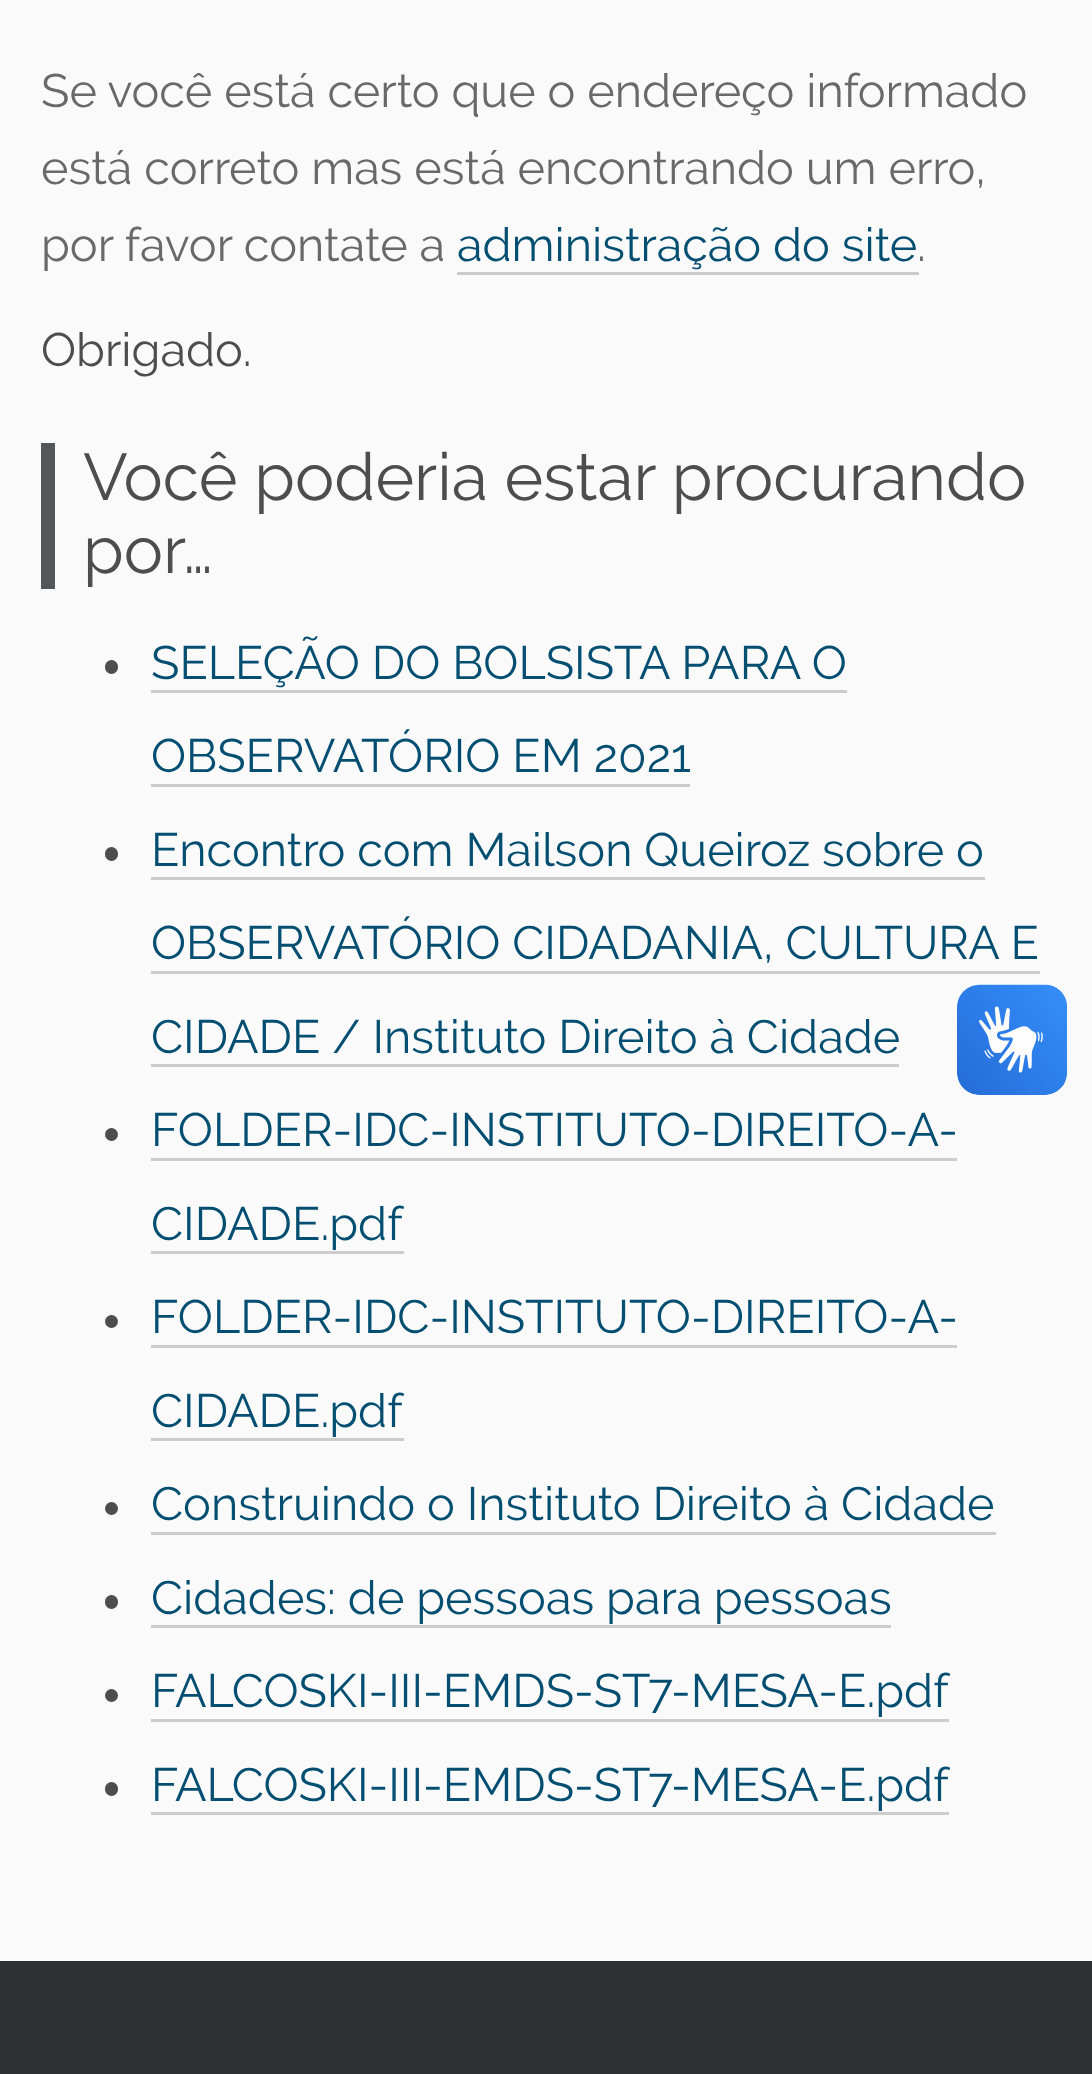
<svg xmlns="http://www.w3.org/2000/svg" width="1092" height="2074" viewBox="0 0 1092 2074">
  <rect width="100%" height="100%" fill="rgb(250,250,250)"/>
  <g font-family="Raleway" font-size="46.75" fill="rgb(105,105,105)">
    <text>
      <tspan x="41" y="107">Se você está certo que o endereço informado</tspan>
      <tspan x="41" y="184">está correto mas está encontrando um erro,</tspan>
      <tspan x="41" y="261">por favor contate a</tspan>
    </text>
  </g>
  <text x="457" y="261" font-family="Raleway" font-size="46.75" fill="rgb(4,79,113)">administração do site</text>
  <rect x="457" y="272" width="462" height="3" fill="rgb(204,204,204)"/>
  <text x="917" y="261" font-family="Raleway" font-size="46.75" fill="rgb(105,105,105)">.</text>
  <text x="41" y="366" font-family="Raleway" font-size="46.75" fill="rgb(77,77,77)">Obrigado.</text>
  <rect x="41" y="443" width="14" height="146" fill="rgb(84,87,89)"/>
  <g font-family="Raleway" font-size="66" fill="rgb(77,77,77)">
    <text>
      <tspan x="83" y="500">Você poderia estar procurando</tspan>
      <tspan x="83" y="573">por…</tspan>
    </text>
  </g>
  <rect x="105" y="660" width="13" height="14" rx="6.5" fill="rgb(77,77,77)"/>
  <text x="151" y="679" font-family="Raleway" font-size="46.75" fill="rgb(4,79,113)">SELEÇÃO DO BOLSISTA PARA O</text>
  <rect x="151" y="690" width="696" height="3" fill="rgb(204,204,204)"/>
  <text x="151" y="772" font-family="Raleway" font-size="46.75" fill="rgb(4,79,113)">OBSERVATÓRIO EM 2021</text>
  <rect x="151" y="784" width="539" height="3" fill="rgb(204,204,204)"/>
  <rect x="105" y="847" width="13" height="14" rx="6.5" fill="rgb(77,77,77)"/>
  <text x="151" y="866" font-family="Raleway" font-size="46.75" fill="rgb(4,79,113)">Encontro com Mailson Queiroz sobre o</text>
  <rect x="151" y="877" width="834" height="3" fill="rgb(204,204,204)"/>
  <text x="151" y="959" font-family="Raleway" font-size="46.75" fill="rgb(4,79,113)">OBSERVATÓRIO CIDADANIA, CULTURA E</text>
  <rect x="151" y="971" width="889" height="3" fill="rgb(204,204,204)"/>
  <text x="151" y="1053" font-family="Raleway" font-size="46.75" fill="rgb(4,79,113)">CIDADE / Instituto Direito à Cidade</text>
  <rect x="151" y="1064" width="748" height="3" fill="rgb(204,204,204)"/>
  <circle cx="111.5" cy="1134.5" r="6.5" fill="rgb(77,77,77)"/>
  <text x="151" y="1146" font-family="Raleway" font-size="46.75" fill="rgb(4,79,113)">FOLDER-IDC-INSTITUTO-DIREITO-A-</text>
  <rect x="151" y="1158" width="806" height="3" fill="rgb(204,204,204)"/>
  <text x="151" y="1240" font-family="Raleway" font-size="46.75" fill="rgb(4,79,113)">CIDADE.pdf</text>
  <rect x="151" y="1251" width="253" height="3" fill="rgb(204,204,204)"/>
  <circle cx="111.5" cy="1321.5" r="6.5" fill="rgb(77,77,77)"/>
  <text x="151" y="1333" font-family="Raleway" font-size="46.75" fill="rgb(4,79,113)">FOLDER-IDC-INSTITUTO-DIREITO-A-</text>
  <rect x="151" y="1345" width="806" height="3" fill="rgb(204,204,204)"/>
  <text x="151" y="1427" font-family="Raleway" font-size="46.75" fill="rgb(4,79,113)">CIDADE.pdf</text>
  <rect x="151" y="1438" width="253" height="3" fill="rgb(204,204,204)"/>
  <circle cx="111.5" cy="1508.5" r="6.5" fill="rgb(77,77,77)"/>
  <text x="151" y="1520" font-family="Raleway" font-size="46.75" fill="rgb(4,79,113)">Construindo o Instituto Direito à Cidade</text>
  <rect x="151" y="1532" width="845" height="3" fill="rgb(204,204,204)"/>
  <rect x="105" y="1595" width="13" height="14" rx="6.5" fill="rgb(77,77,77)"/>
  <text x="151" y="1614" font-family="Raleway" font-size="46.75" fill="rgb(4,79,113)">Cidades: de pessoas para pessoas</text>
  <rect x="151" y="1625" width="740" height="3" fill="rgb(204,204,204)"/>
  <circle cx="111.5" cy="1695.5" r="6.5" fill="rgb(77,77,77)"/>
  <text x="151" y="1707" font-family="Raleway" font-size="46.75" fill="rgb(4,79,113)">FALCOSKI-III-EMDS-ST7-MESA-E.pdf</text>
  <rect x="151" y="1719" width="798" height="3" fill="rgb(204,204,204)"/>
  <rect x="105" y="1782" width="13" height="14" rx="6.5" fill="rgb(77,77,77)"/>
  <text x="151" y="1801" font-family="Raleway" font-size="46.75" fill="rgb(4,79,113)">FALCOSKI-III-EMDS-ST7-MESA-E.pdf</text>
  <rect x="151" y="1812" width="798" height="3" fill="rgb(204,204,204)"/>
  <image x="957" y="984" width="110" height="111" href="pic1.png"/>
  <image x="957" y="985" width="110" height="110" href="pic2.png"/>
  <rect x="0" y="1961" width="1092" height="113" fill="rgb(46,49,51)"/>
</svg>
